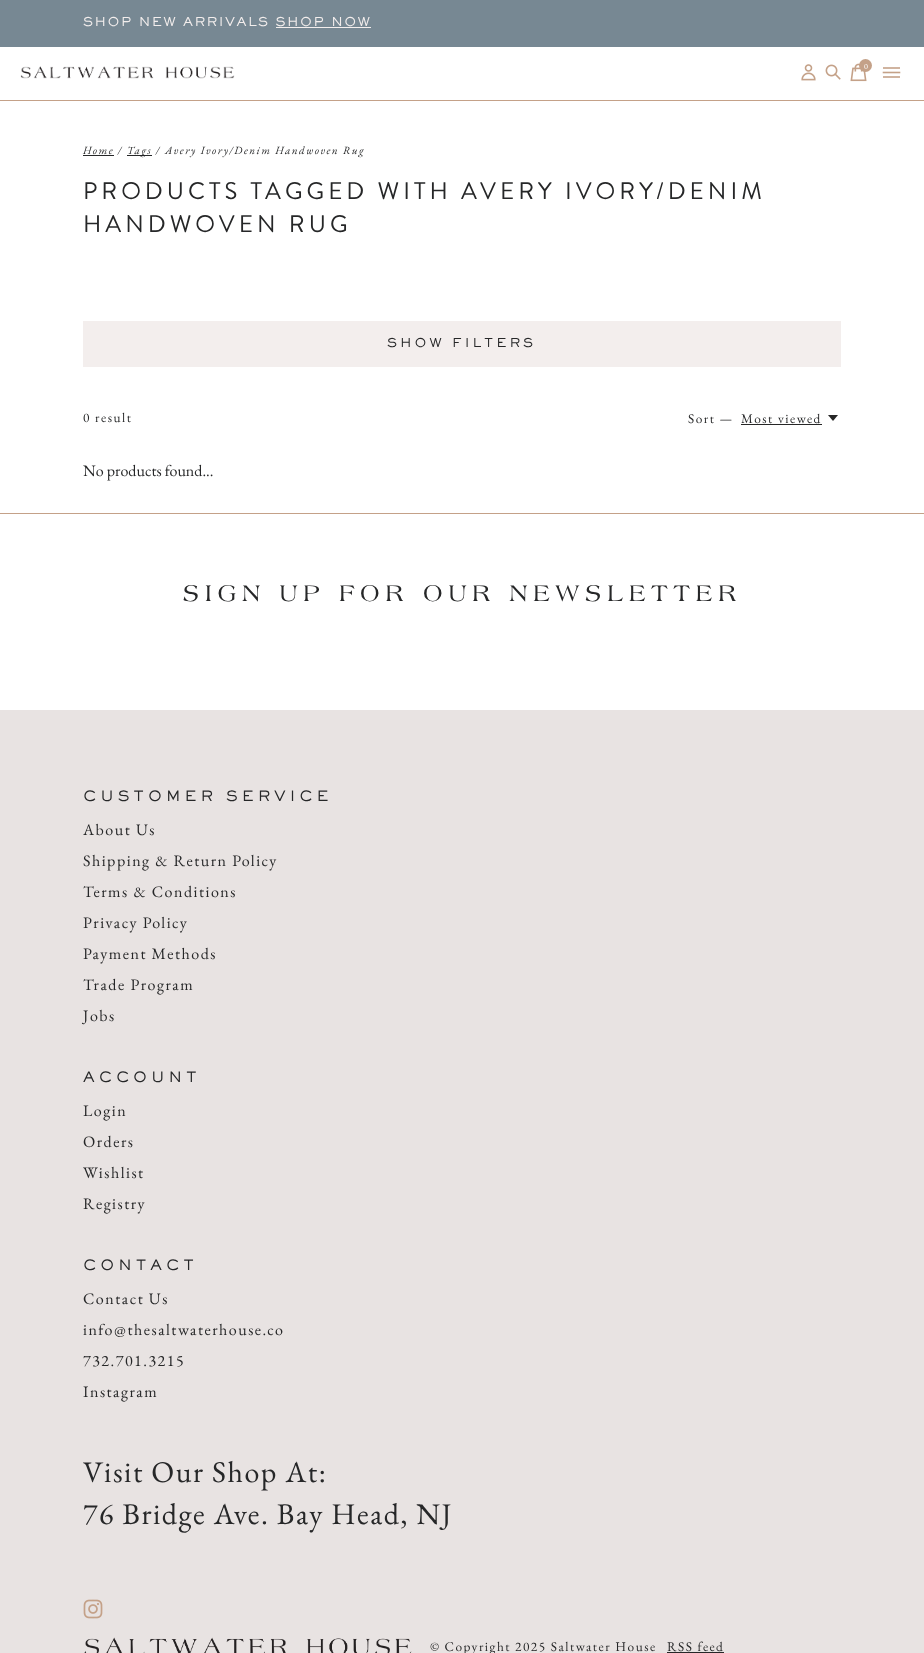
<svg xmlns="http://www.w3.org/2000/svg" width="924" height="1653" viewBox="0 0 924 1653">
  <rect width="100%" height="100%" fill="rgb(255,255,255)"/>
  <rect x="0" y="0" width="924" height="47" fill="rgb(119,136,147)"/>
  <text x="83" y="26" font-family="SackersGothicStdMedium" font-size="12" font-weight="500" letter-spacing="1.5" fill="rgb(243,238,237)">SHOP NEW ARRIVALS SHOP NOW</text>
  <rect x="276" y="27" width="95" height="1" fill="rgb(243,238,237)"/>
  <image x="20" y="66" width="215" height="13" href="pic1.png"/>
  <image x="801" y="64" width="15" height="17" href="pic2.png"/>
  <image x="825" y="64" width="16" height="16" href="pic3.png"/>
  <image x="850" y="63" width="17" height="19" href="pic4.png"/>
  <circle cx="865.5" cy="65.5" r="6.5" fill="rgb(196,161,136)"/>
  <text x="864" y="69" font-family="EB Garamond" font-size="8" fill="rgb(255,255,255)">0</text>
  <rect x="883" y="67" width="17" height="2" fill="rgb(208,180,160)"/>
  <path d="M883.5 72.5H899.5" fill="none" stroke="rgb(196,161,136)" stroke-width="1.6" stroke-linecap="square"/>
  <rect x="883" y="76" width="17" height="2" fill="rgb(208,180,160)"/>
  <rect x="0" y="100" width="924" height="1" fill="rgb(196,161,136)"/>
  <text x="83" y="154" font-family="EB Garamond" font-size="11.1" font-style="italic" letter-spacing="1.5" fill="rgb(38,39,40)">Home</text>
  <rect x="83" y="155" width="31" height="1" fill="rgb(38,39,40)"/>
  <text x="118" y="154" font-family="EB Garamond" font-size="11.1" font-style="italic" letter-spacing="1.5" fill="rgb(38,39,40)">/</text>
  <rect x="127" y="155" width="25" height="1" fill="rgb(38,39,40)"/>
  <g font-family="EB Garamond" font-size="11.1" font-style="italic" letter-spacing="1.5" fill="rgb(38,39,40)">
    <text x="127" y="154">Tags</text>
    <text x="156" y="154">/</text>
    <text x="165" y="154">Avery Ivory/Denim Handwoven Rug</text>
  </g>
  <g font-family="Brandon Grotesque" font-size="24" letter-spacing="4" fill="rgb(38,39,40)">
    <text>
      <tspan x="83" y="199">PRODUCTS TAGGED WITH AVERY IVORY/DENIM</tspan>
      <tspan x="83" y="232">HANDWOVEN RUG</tspan>
    </text>
  </g>
  <rect x="83" y="321" width="758" height="46" fill="rgb(243,238,237)"/>
  <text x="387" y="347" font-family="SackersGothicStdMedium" font-size="12" font-weight="500" letter-spacing="3" fill="rgb(38,39,40)">SHOW FILTERS</text>
  <g font-family="EB Garamond" font-size="13.3" letter-spacing="1.5" fill="rgb(38,39,40)">
    <text x="83" y="422">0 result</text>
    <text x="688" y="423">Sort —</text>
    <text x="741" y="423">Most viewed</text>
  </g>
  <rect x="741" y="424" width="81" height="1" fill="rgb(38,38,38)"/>
  <path d="M828 415L833 421L838 415Z" fill="rgb(38,38,38)"/>
  <text x="83" y="476" font-family="EB Garamond" font-size="16" fill="rgb(38,39,40)">No products found...</text>
  <rect x="0" y="513" width="924" height="1" fill="rgb(196,161,136)"/>
  <text x="183" y="601" font-family="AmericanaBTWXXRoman" font-size="24" letter-spacing="6" fill="rgb(38,39,40)">SIGN UP FOR OUR NEWSLETTER</text>
  <rect x="0" y="710" width="924" height="943" fill="rgb(232,227,226)"/>
  <text x="83" y="801" font-family="SackersGothicStdMedium" font-size="14" font-weight="500" letter-spacing="4" fill="rgb(38,39,40)">CUSTOMER SERVICE</text>
  <g font-family="EB Garamond" font-size="16" letter-spacing="1.5" fill="rgb(38,39,40)">
    <text>
      <tspan x="83" y="835">About Us</tspan>
      <tspan x="83" y="866">Shipping &amp; Return Policy</tspan>
      <tspan x="83" y="897">Terms &amp; Conditions</tspan>
      <tspan x="83" y="928">Privacy Policy</tspan>
      <tspan x="83" y="959">Payment Methods</tspan>
      <tspan x="83" y="990">Trade Program</tspan>
      <tspan x="83" y="1021">Jobs</tspan>
    </text>
  </g>
  <text x="83" y="1082" font-family="SackersGothicStdMedium" font-size="14" font-weight="500" letter-spacing="4" fill="rgb(38,39,40)">ACCOUNT</text>
  <g font-family="EB Garamond" font-size="16" letter-spacing="1.5" fill="rgb(38,39,40)">
    <text>
      <tspan x="83" y="1116">Login</tspan>
      <tspan x="83" y="1147">Orders</tspan>
      <tspan x="83" y="1178">Wishlist</tspan>
      <tspan x="83" y="1209">Registry</tspan>
    </text>
  </g>
  <text x="83" y="1270" font-family="SackersGothicStdMedium" font-size="14" font-weight="500" letter-spacing="4" fill="rgb(38,39,40)">CONTACT</text>
  <g font-family="EB Garamond" font-size="16" letter-spacing="1.5" fill="rgb(38,39,40)">
    <text>
      <tspan x="83" y="1304">Contact Us</tspan>
      <tspan x="83" y="1335">info@thesaltwaterhouse.co</tspan>
      <tspan x="83" y="1366">732.701.3215</tspan>
      <tspan x="83" y="1397">Instagram</tspan>
    </text>
  </g>
  <g font-family="EB Garamond" font-size="30" letter-spacing="1.5" fill="rgb(38,39,40)">
    <text>
      <tspan x="83" y="1482">Visit Our Shop At:</tspan>
      <tspan x="83" y="1524">76 Bridge Ave. Bay Head, NJ</tspan>
    </text>
  </g>
  <image x="83" y="1599" width="20" height="20" href="pic5.png"/>
  <image x="84" y="1637" width="328" height="16" href="pic6.png"/>
  <g font-family="EB Garamond" font-size="13.3" letter-spacing="1.5" fill="rgb(38,39,40)">
    <text x="430" y="1651">© Copyright 2025 Saltwater House</text>
    <text x="667" y="1651">RSS feed</text>
  </g>
  <rect x="667" y="1652" width="57" height="1" fill="rgb(38,39,40)"/>
</svg>
